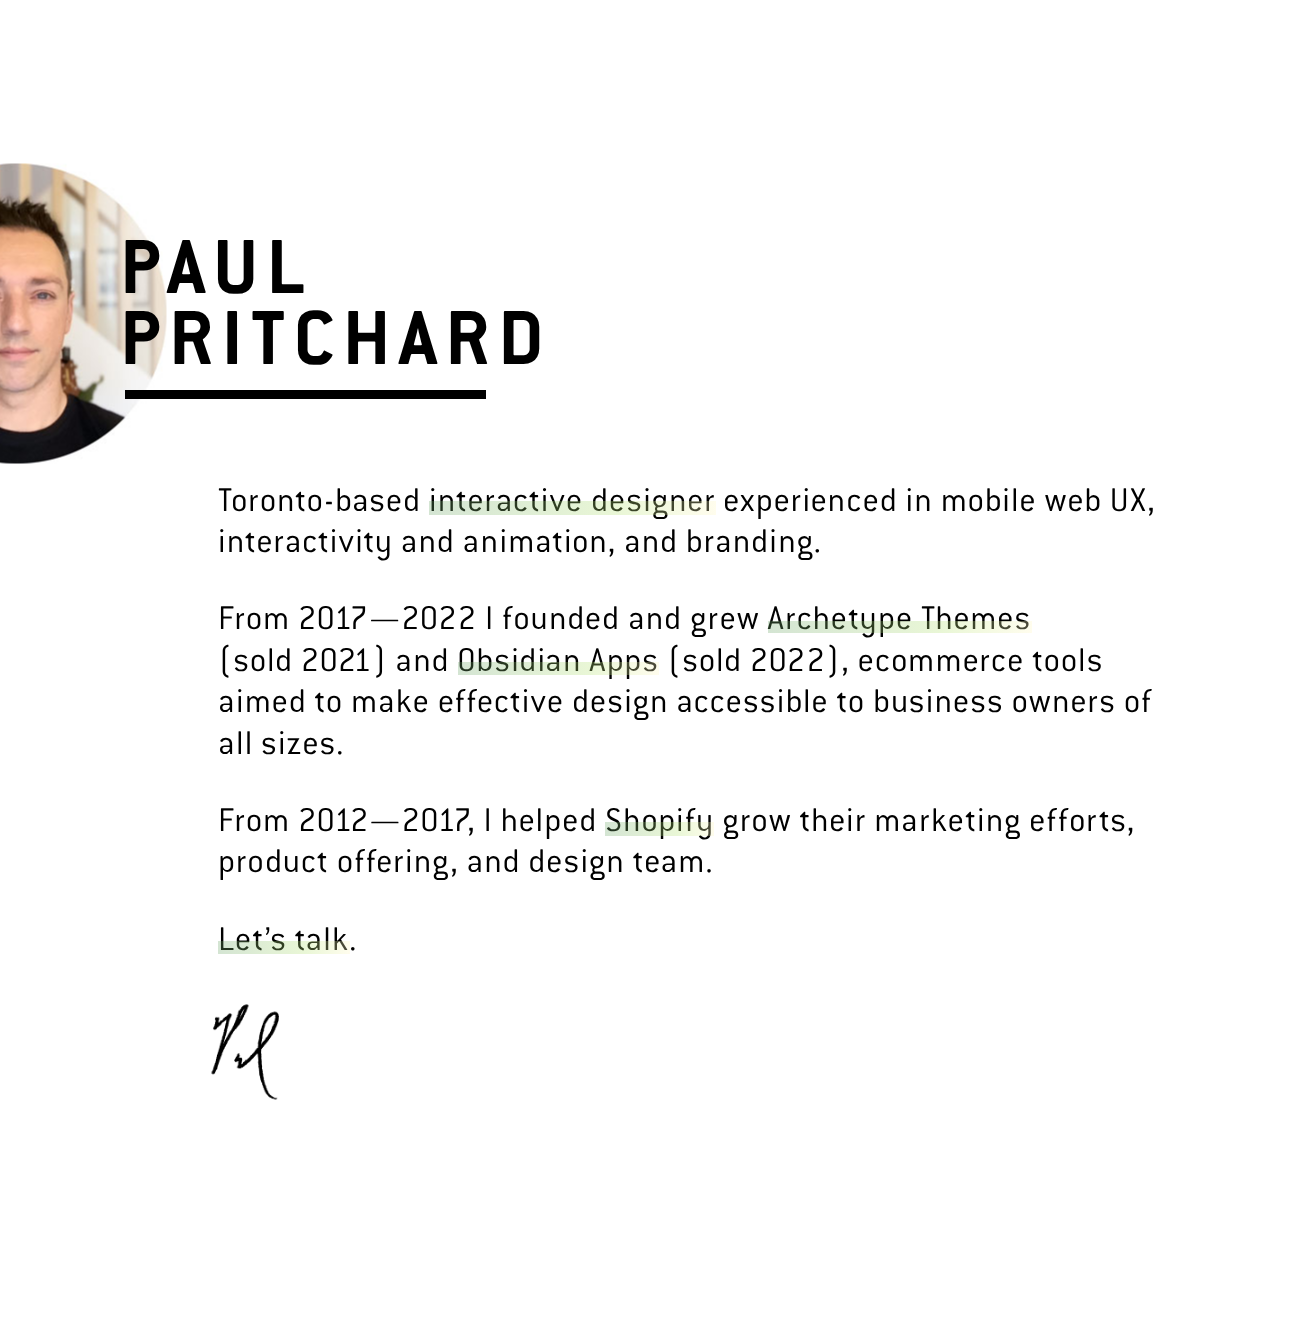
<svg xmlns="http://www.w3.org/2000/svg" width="1297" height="1340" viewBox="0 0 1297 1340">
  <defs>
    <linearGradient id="g1" gradientUnits="userSpaceOnUse" x1="429" y1="508" x2="1002" y2="508"><stop offset="0" stop-color="rgb(111,167,107)" stop-opacity="0.3"/><stop offset="0.33" stop-color="rgb(182,227,118)" stop-opacity="0.3"/><stop offset="0.5" stop-color="rgb(255,247,195)" stop-opacity="0.3"/><stop offset="0.66" stop-color="rgb(161,239,122)" stop-opacity="0.3"/><stop offset="1" stop-color="rgb(110,168,107)" stop-opacity="0.3"/></linearGradient>
    <linearGradient id="g2" gradientUnits="userSpaceOnUse" x1="768" y1="627" x2="1296" y2="627"><stop offset="0" stop-color="rgb(111,167,107)" stop-opacity="0.3"/><stop offset="0.33" stop-color="rgb(182,227,118)" stop-opacity="0.3"/><stop offset="0.5" stop-color="rgb(255,247,195)" stop-opacity="0.3"/><stop offset="0.66" stop-color="rgb(161,239,122)" stop-opacity="0.3"/><stop offset="1" stop-color="rgb(110,168,107)" stop-opacity="0.3"/></linearGradient>
    <linearGradient id="g3" gradientUnits="userSpaceOnUse" x1="458" y1="668" x2="860" y2="668"><stop offset="0" stop-color="rgb(111,167,107)" stop-opacity="0.3"/><stop offset="0.33" stop-color="rgb(182,227,118)" stop-opacity="0.3"/><stop offset="0.5" stop-color="rgb(255,247,195)" stop-opacity="0.3"/><stop offset="0.66" stop-color="rgb(161,239,122)" stop-opacity="0.3"/><stop offset="1" stop-color="rgb(110,168,107)" stop-opacity="0.3"/></linearGradient>
    <linearGradient id="g4" gradientUnits="userSpaceOnUse" x1="605" y1="829" x2="824" y2="829"><stop offset="0" stop-color="rgb(111,167,107)" stop-opacity="0.3"/><stop offset="0.33" stop-color="rgb(182,227,118)" stop-opacity="0.3"/><stop offset="0.5" stop-color="rgb(255,247,195)" stop-opacity="0.3"/><stop offset="0.66" stop-color="rgb(161,239,122)" stop-opacity="0.3"/><stop offset="1" stop-color="rgb(110,168,107)" stop-opacity="0.3"/></linearGradient>
    <linearGradient id="g5" gradientUnits="userSpaceOnUse" x1="218" y1="947" x2="482" y2="947"><stop offset="0" stop-color="rgb(111,167,107)" stop-opacity="0.3"/><stop offset="0.33" stop-color="rgb(182,227,118)" stop-opacity="0.3"/><stop offset="0.5" stop-color="rgb(255,247,195)" stop-opacity="0.3"/><stop offset="0.66" stop-color="rgb(161,239,122)" stop-opacity="0.3"/><stop offset="1" stop-color="rgb(110,168,107)" stop-opacity="0.3"/></linearGradient>
  </defs>
  <rect width="100%" height="100%" fill="rgb(255,255,255)"/>
  <image x="0" y="163" width="167" height="301" href="pic1.png"/>
  <g font-family="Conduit" font-size="84" font-weight="bold" letter-spacing="8.5" fill="rgb(0,0,0)">
    <text>
      <tspan x="120" y="293">PAUL</tspan>
      <tspan x="120" y="364">PRITCHARD</tspan>
    </text>
  </g>
  <rect x="125" y="390" width="361" height="9" fill="rgb(0,0,0)"/>
  <g font-family="Conduit" font-size="36" font-weight="300" letter-spacing="1.25" fill="rgb(0,0,0)">
    <text x="218" y="511">Toronto-based interactive designer</text>
    <text x="723" y="511">experienced in mobile web UX,</text>
  </g>
  <rect x="429" y="501" width="287" height="14" fill="url(#g1)"/>
  <g font-family="Conduit" font-size="36" font-weight="300" letter-spacing="1.25" fill="rgb(0,0,0)">
    <text x="218" y="552">interactivity and animation, and branding.</text>
    <text x="218" y="629">From 2017—2022 I founded and grew Archetype Themes</text>
  </g>
  <rect x="768" y="621" width="264" height="12" fill="url(#g2)"/>
  <g font-family="Conduit" font-size="36" font-weight="300" letter-spacing="1.25" fill="rgb(0,0,0)">
    <text x="218" y="671">(sold 2021) and Obsidian Apps</text>
    <text x="667" y="671">(sold 2022), ecommerce tools</text>
  </g>
  <rect x="458" y="662" width="201" height="13" fill="url(#g3)"/>
  <g font-family="Conduit" font-size="36" font-weight="300" letter-spacing="1.25" fill="rgb(0,0,0)">
    <text>
      <tspan x="218" y="712">aimed to make effective design accessible to business owners of</tspan>
      <tspan x="218" y="754">all sizes.</tspan>
    </text>
    <text x="218" y="831">From 2012—2017, I helped Shopify</text>
    <text x="722" y="831">grow their marketing efforts,</text>
  </g>
  <rect x="605" y="822" width="109" height="14" fill="url(#g4)"/>
  <g font-family="Conduit" font-size="36" font-weight="300" letter-spacing="1.25" fill="rgb(0,0,0)">
    <text x="218" y="872">product offering, and design team.</text>
    <text x="218" y="950">Let’s talk</text>
  </g>
  <rect x="218" y="941" width="132" height="13" fill="url(#g5)"/>
  <text x="349" y="950" font-family="Conduit" font-size="36" font-weight="300" letter-spacing="1.25" fill="rgb(0,0,0)">.</text>
  <image x="211" y="1004" width="68" height="96" href="pic2.png"/>
</svg>
